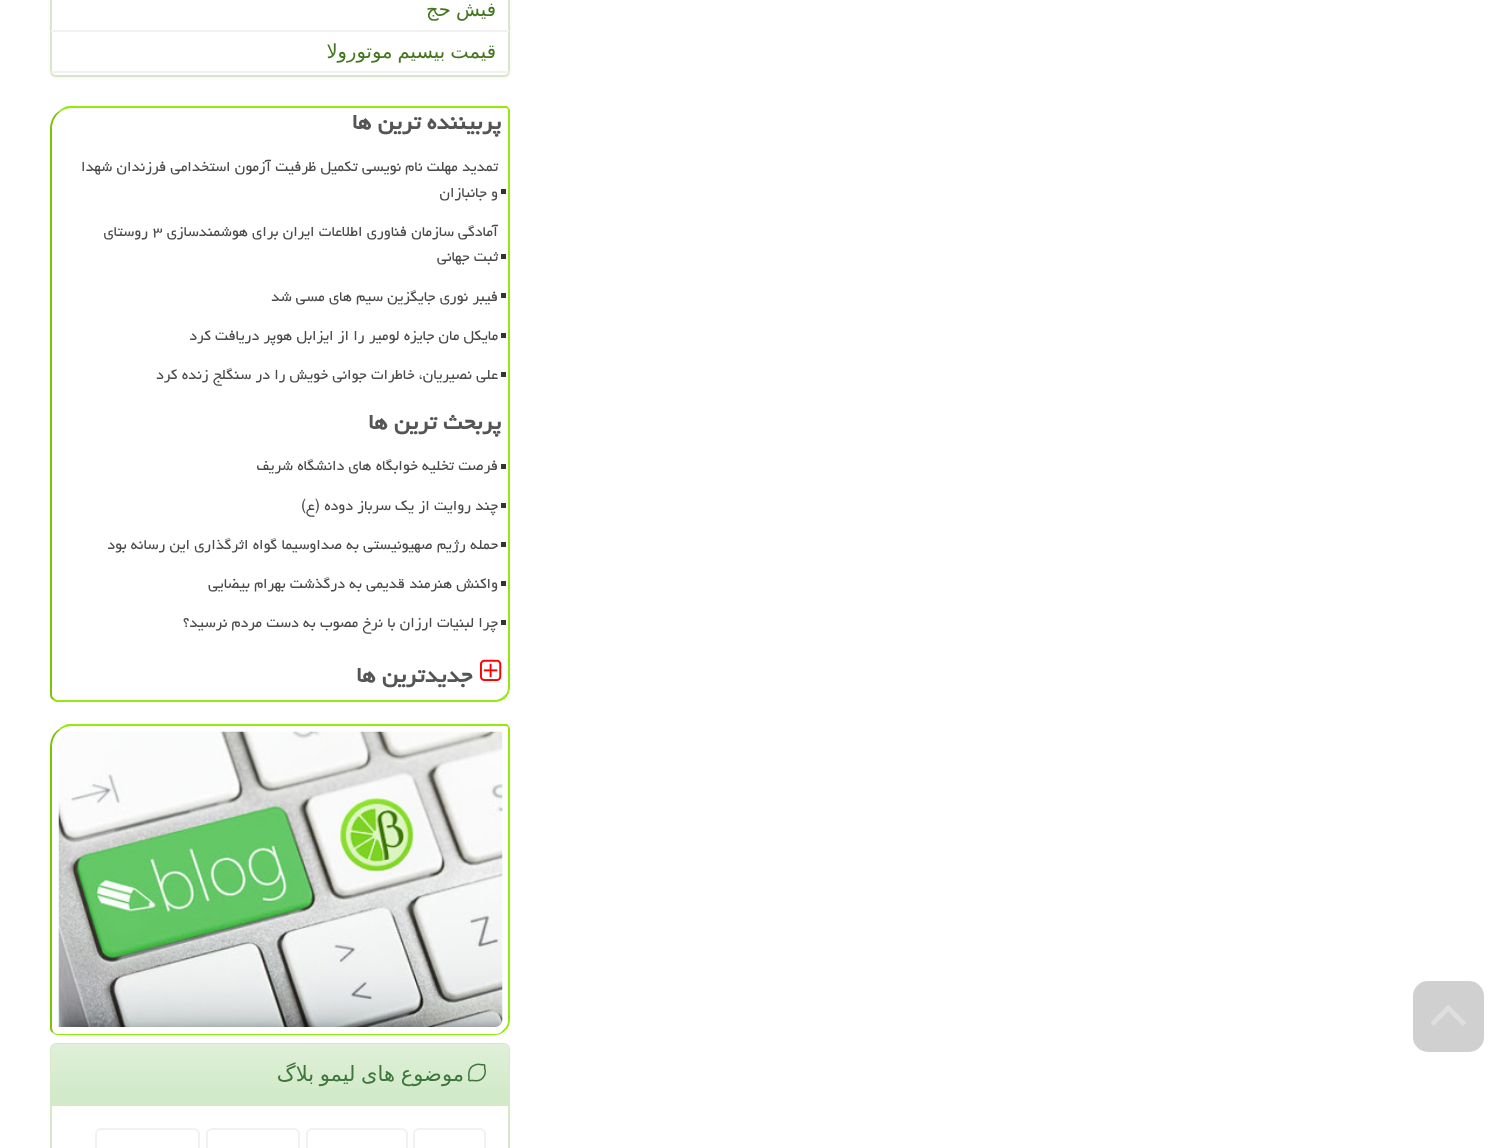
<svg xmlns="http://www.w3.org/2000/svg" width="1498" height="1148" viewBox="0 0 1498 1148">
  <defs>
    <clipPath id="clip1"><path d="M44 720H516V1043H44ZM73 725H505C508 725 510 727 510 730V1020C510 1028.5 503.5 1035 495 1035H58C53.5 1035 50 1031.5 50 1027V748C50 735.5 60.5 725 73 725Z" clip-rule="evenodd"/></clipPath>
    <linearGradient id="g1" gradientUnits="userSpaceOnUse" x1="280" y1="1044" x2="280" y2="1104"><stop offset="0" stop-color="rgb(223,240,216)"/><stop offset="1" stop-color="rgb(208,233,198)"/></linearGradient>
  </defs>
  <rect width="100%" height="100%" fill="rgb(255,255,255)"/>
  <rect x="1413" y="981" width="71" height="71" rx="15" fill="rgb(208,208,208)"/>
  <image x="1431" y="1005" width="35" height="21" href="pic1.png"/>
  <rect x="50" y="-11" width="460" height="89" rx="6" fill="rgba(0,0,0,0.05)" filter="blur(1.5px)"/>
  <rect x="51" y="-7" width="458" height="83" rx="5" fill="rgb(255,255,255)" stroke="rgb(214,233,198)" stroke-width="2"/>
  <rect x="51" y="30" width="458" height="2" fill="rgb(241,241,241)"/>
  <text x="496" y="16" word-spacing="-1" font-family="DejaVu Sans" font-size="19.5" direction="rtl" fill="rgb(67,118,30)">فیش حج</text>
  <rect x="51" y="71" width="458" height="2" fill="rgb(241,241,241)"/>
  <text x="496" y="58" word-spacing="-1" font-family="DejaVu Sans" font-size="19.5" direction="rtl" fill="rgb(67,118,30)">قیمت بیسیم موتورولا</text>
  <path d="M72 108C68 108 64 109 60 112L59 111C61 109 64 107 68 106H507L509 108L508 109L506 108Z" fill="rgb(149,233,12)"/>
  <path d="M510 687V110L509 108L508 109V111V687C508 690 507 694 504 696L506 698C508 695 510 691 510 687Z" fill="rgb(149,233,12)"/>
  <path d="M57 702H495C499 702 503 700 506 698L504 696C502 698 498 700 495 700H57L55 699L53 700C54 701 55 702 57 702Z" fill="rgb(149,233,12)"/>
  <path d="M53 700C51 699 50 697 50 694V129C50 122 53 115 59 111L60 112C55 116 52 122 52 129V694C52 697 53 698 55 699Z" fill="rgb(123,196,2)"/>
  <text x="501" y="129" font-family="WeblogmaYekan" font-size="27" font-weight="bold" direction="rtl" fill="rgb(85,85,85)">پربیننده ترین ها</text>
  <rect x="501" y="189" width="5" height="5" fill="rgb(51,51,51)"/>
  <g font-family="WeblogmaYekan" font-size="18" direction="rtl" fill="rgb(74,74,74)">
    <text>
      <tspan x="498" y="171">تمدید مهلت نام نویسی تکمیل ظرفیت آزمون استخدامی فرزندان شهدا</tspan>
      <tspan x="498" y="197">و جانبازان</tspan>
    </text>
  </g>
  <rect x="501" y="254" width="5" height="5" fill="rgb(51,51,51)"/>
  <text x="498" y="236" font-family="WeblogmaYekan" font-size="18" direction="rtl" fill="rgb(74,74,74)">آمادگی سازمان فناوری اطلاعات ایران برای هوشمندسازی</text>
  <text x="153" y="236" font-family="WeblogmaYekan" font-size="18" fill="rgb(74,74,74)">۳</text>
  <g font-family="WeblogmaYekan" font-size="18" direction="rtl" fill="rgb(74,74,74)">
    <text x="148" y="236">روستای</text>
    <text x="498" y="261">ثبت جهانی</text>
  </g>
  <rect x="501" y="293" width="5" height="5" fill="rgb(51,51,51)"/>
  <text x="498" y="301" font-family="WeblogmaYekan" font-size="18" direction="rtl" fill="rgb(74,74,74)">فیبر نوری جایگزین سیم های مسی شد</text>
  <rect x="501" y="333" width="5" height="5" fill="rgb(51,51,51)"/>
  <text x="498" y="340" font-family="WeblogmaYekan" font-size="18" direction="rtl" fill="rgb(74,74,74)">مایکل مان جایزه لومیر را از ایزابل هوپر دریافت کرد</text>
  <rect x="501" y="372" width="5" height="5" fill="rgb(51,51,51)"/>
  <text x="498" y="379" font-family="WeblogmaYekan" font-size="18" direction="rtl" fill="rgb(74,74,74)">علی نصیریان، خاطرات جوانی خویش را در سنگلج زنده کرد</text>
  <text x="501" y="429" font-family="WeblogmaYekan" font-size="27" font-weight="bold" direction="rtl" fill="rgb(85,85,85)">پربحث ترین ها</text>
  <rect x="501" y="464" width="5" height="5" fill="rgb(51,51,51)"/>
  <text x="498" y="470" font-family="WeblogmaYekan" font-size="18" direction="rtl" fill="rgb(74,74,74)">فرصت تخلیه خوابگاه های دانشگاه شریف</text>
  <rect x="501" y="503" width="5" height="5" fill="rgb(51,51,51)"/>
  <text x="498" y="510" font-family="WeblogmaYekan" font-size="18" direction="rtl" fill="rgb(74,74,74)">چند روایت از یک سرباز دوده (ع)</text>
  <rect x="501" y="542" width="5" height="5" fill="rgb(51,51,51)"/>
  <text x="498" y="549" font-family="WeblogmaYekan" font-size="18" direction="rtl" fill="rgb(74,74,74)">حمله رژیم صهیونیستی به صداوسیما گواه اثرگذاری این رسانه بود</text>
  <rect x="501" y="581" width="5" height="5" fill="rgb(51,51,51)"/>
  <text x="498" y="588" font-family="WeblogmaYekan" font-size="18" direction="rtl" fill="rgb(74,74,74)">واکنش هنرمند قدیمی به درگذشت بهرام بیضایی</text>
  <rect x="501" y="620" width="5" height="5" fill="rgb(51,51,51)"/>
  <text x="498" y="627" font-family="WeblogmaYekan" font-size="18" direction="rtl" fill="rgb(74,74,74)">چرا لبنیات ارزان با نرخ مصوب به دست مردم نرسید؟</text>
  <image x="480" y="659" width="22" height="22" href="pic2.png"/>
  <text x="472" y="682" font-family="WeblogmaYekan" font-size="27" font-weight="bold" direction="rtl" fill="rgb(85,85,85)">جدیدترین ها</text>
  <g clip-path="url(#clip1)">
    <rect x="50" y="726" width="460" height="311" rx="23" fill="rgba(0,0,0,0.07)" filter="blur(1.5px)"/>
  </g>
  <path d="M72 726C68 726 64 727 60 730L59 729C61 727 64 725 68 724H507L509 726L508 727L506 726Z" fill="rgb(149,233,12)"/>
  <path d="M510 1020V729L509 726L508 727V729V1020C508 1023 507 1027 504 1029L506 1030C508 1028 510 1024 510 1020Z" fill="rgb(149,233,12)"/>
  <path d="M57 1035H495C499 1035 503 1033 506 1030L504 1029C502 1032 499 1034 495 1034H57C56 1034 55 1033 54 1033H53C54 1034 55 1035 57 1035Z" fill="rgb(149,233,12)"/>
  <path d="M53 1033C51 1032 50 1030 50 1028V747C50 740 53 733 59 729L60 730C55 734 52 740 52 747V1028C52 1030 53 1031 54 1033Z" fill="rgb(123,196,2)"/>
  <image x="58" y="731" width="445" height="296" href="pic3.png"/>
  <rect x="51" y="1044" width="458" height="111" rx="5" fill="none" stroke="rgb(214,233,198)" stroke-width="2"/>
  <path d="M56 1044H504C507 1044 509 1046 509 1049V1104H51V1049C51 1046 53 1044 56 1044Z" fill="url(#g1)"/>
  <rect x="51" y="1104" width="458" height="2" fill="rgb(214,233,198)"/>
  <image x="468" y="1063" width="18" height="19" href="pic4.png"/>
  <text x="464" y="1081" word-spacing="-1" font-family="DejaVu Sans" font-size="21" direction="rtl" fill="rgb(60,118,61)">موضوع های لیمو بلاگ</text>
  <rect x="414" y="1129" width="71" height="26" rx="5" fill="none" stroke="rgb(241,241,241)" stroke-width="2"/>
  <rect x="307" y="1129" width="100" height="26" rx="5" fill="none" stroke="rgb(241,241,241)" stroke-width="2"/>
  <rect x="207" y="1129" width="92" height="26" rx="5" fill="none" stroke="rgb(241,241,241)" stroke-width="2"/>
  <rect x="96" y="1129" width="103" height="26" rx="5" fill="none" stroke="rgb(241,241,241)" stroke-width="2"/>
</svg>
